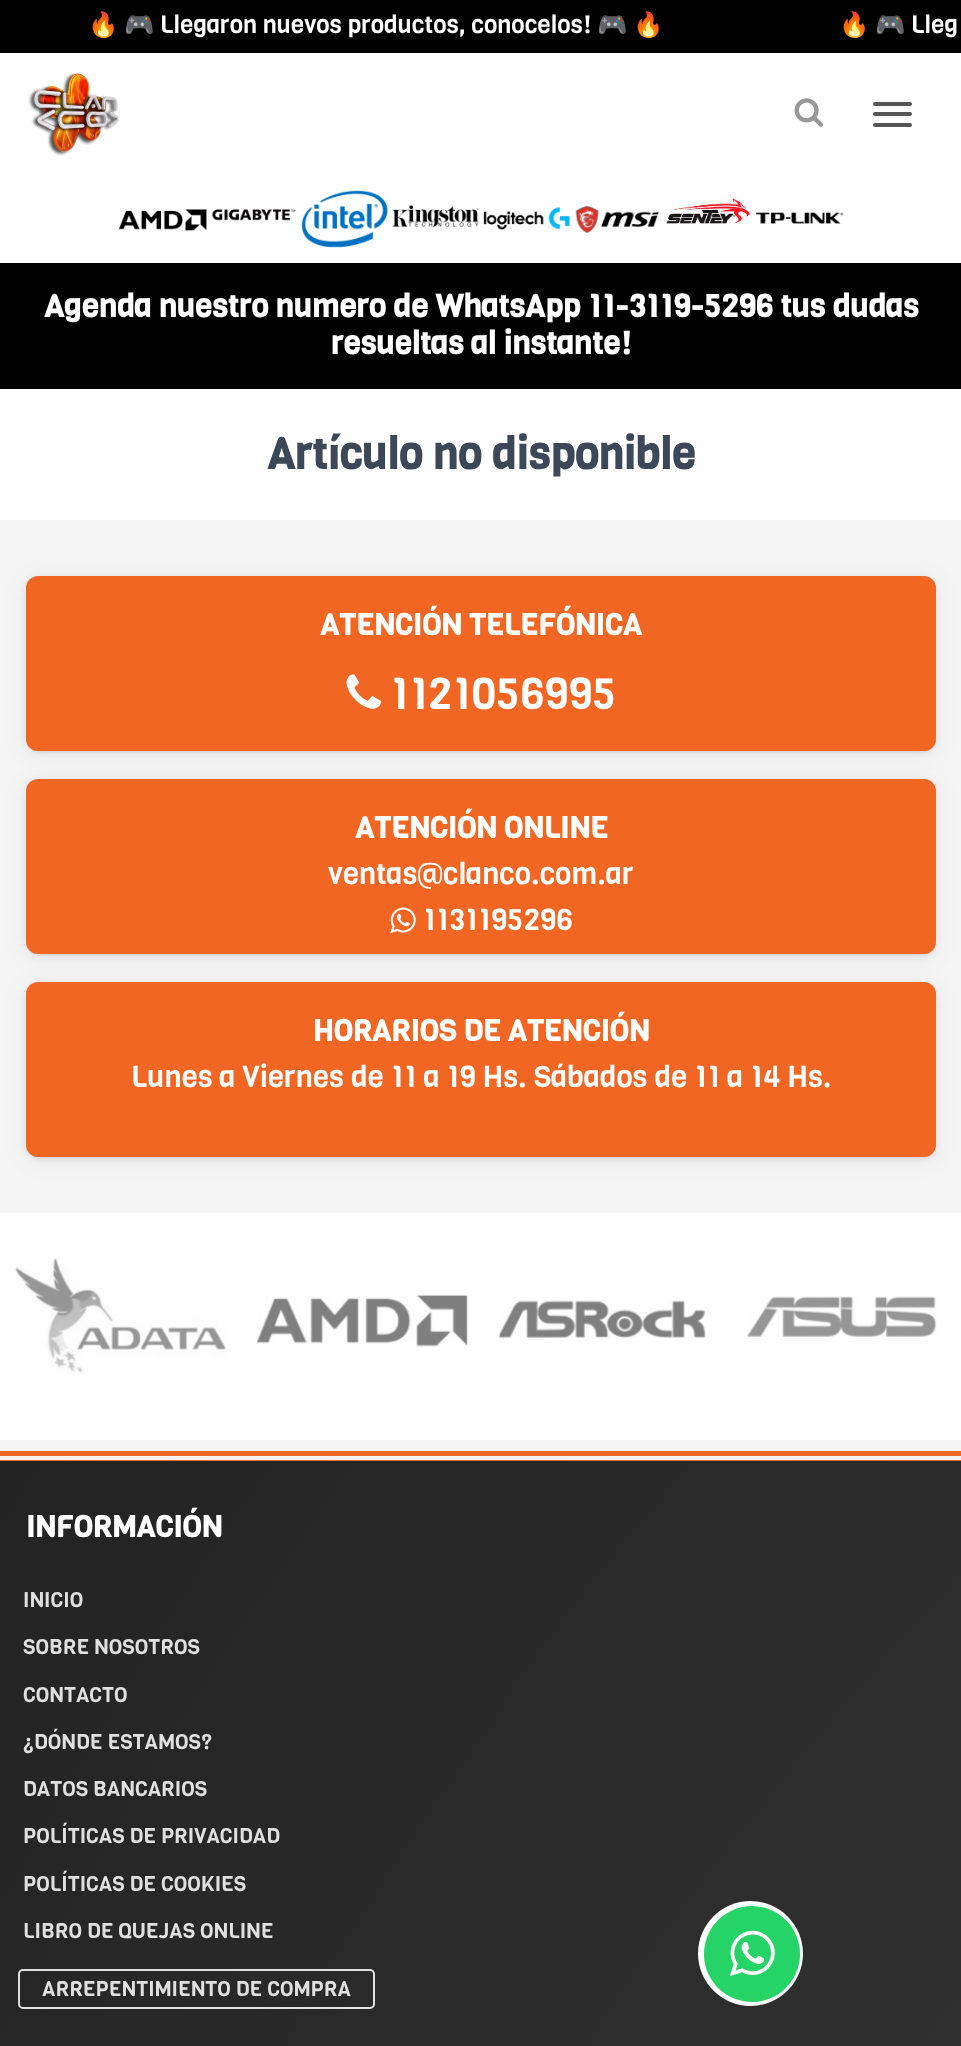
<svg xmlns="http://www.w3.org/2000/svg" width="961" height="2046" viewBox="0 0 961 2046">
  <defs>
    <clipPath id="clip1"><rect x="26" y="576" width="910" height="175" rx="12"/></clipPath>
    <clipPath id="clip2"><rect x="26" y="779" width="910" height="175" rx="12"/></clipPath>
    <clipPath id="clip3"><rect x="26" y="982" width="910" height="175" rx="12"/></clipPath>
    <radialGradient id="g1" gradientUnits="userSpaceOnUse" cx="0" cy="0" r="1" gradientTransform="matrix(3743 0 0 6070 2647 5753)"><stop offset="0" stop-color="rgb(88,88,88)"/><stop offset="1" stop-color="rgb(35,35,35)"/></radialGradient>
  </defs>
  <rect width="100%" height="100%" fill="rgb(245,245,245)"/>
  <rect x="0" y="0" width="961" height="53" fill="rgb(0,0,0)"/>
  <g font-family="Noto Color Emoji" font-size="24.5" fill="rgb(255,255,255)">
    <text x="88" y="33">🔥</text>
    <text x="124" y="33">🎮</text>
  </g>
  <text x="160" y="33" font-family="Viga" font-size="24.5" fill="rgb(255,255,255)">Llegaron nuevos productos, conocelos!</text>
  <g font-family="Noto Color Emoji" font-size="24.5" fill="rgb(255,255,255)">
    <text x="597" y="33">🎮</text>
    <text x="633" y="33">🔥</text>
    <text x="839" y="33">🔥</text>
    <text x="875" y="33">🎮</text>
  </g>
  <text x="911" y="33" font-family="Viga" font-size="24.5" fill="rgb(255,255,255)">Lleg</text>
  <rect x="0" y="53" width="961" height="210" fill="rgb(255,255,255)"/>
  <image x="28" y="72" width="92" height="84" href="pic1.png"/>
  <image x="794" y="98" width="30" height="29" href="pic2.png"/>
  <rect x="873" y="102" width="39" height="4" rx="2" fill="rgb(85,85,85)"/>
  <rect x="873" y="112" width="39" height="4" rx="2" fill="rgb(85,85,85)"/>
  <rect x="873" y="123" width="39" height="4" rx="2" fill="rgb(85,85,85)"/>
  <image x="119" y="209" width="88" height="22" href="pic3.png"/>
  <image x="211" y="209" width="85" height="12" href="pic4.png"/>
  <image x="301" y="189" width="88" height="62" href="pic5.png"/>
  <image x="392" y="204" width="88" height="24" href="pic6.png"/>
  <image x="483" y="203" width="88" height="28" href="pic7.png"/>
  <image x="574" y="203" width="85" height="34" href="pic8.png"/>
  <image x="666" y="198" width="85" height="26" href="pic9.png"/>
  <image x="756" y="212" width="88" height="12" href="pic10.png"/>
  <rect x="0" y="263" width="961" height="126" fill="rgb(0,0,0)"/>
  <g font-family="Viga" font-size="31.5" font-weight="bold" fill="rgb(255,255,255)">
    <text x="44" y="317">Agenda nuestro numero de WhatsApp 11-3119-5296 tus dudas</text>
    <text x="331" y="354">resueltas al instante!</text>
  </g>
  <rect x="0" y="389" width="961" height="131" fill="rgb(255,255,255)"/>
  <text x="267" y="469" font-family="Viga" font-size="43.75" font-weight="bold" fill="rgb(60,72,88)">Artículo no disponible</text>
  <rect x="26" y="578" width="910" height="175" rx="12" fill="rgba(0,0,0,0.05)" filter="blur(4.5px)"/>
  <rect x="30" y="585" width="903" height="168" rx="9" fill="rgba(0,0,0,0.05)" filter="blur(1px)"/>
  <rect x="26" y="579" width="910" height="175" rx="12" fill="rgba(0,0,0,0.05)" filter="blur(12px)"/>
  <g clip-path="url(#clip1)">
    <rect x="46" y="618" width="871" height="136" fill="rgba(156,39,176,0.6)" filter="blur(21px)"/>
    <rect x="26" y="585" width="910" height="175" rx="5" fill="rgba(0,0,0,0.2)" filter="blur(17.5px)"/>
  </g>
  <rect x="26" y="576" width="910" height="175" rx="12" fill="rgb(241,102,34)"/>
  <text x="320" y="635" font-family="Viga" font-size="29.75" font-weight="bold" fill="rgb(255,255,255)">ATENCIÓN TELEFÓNICA</text>
  <image x="346" y="674" width="35" height="35" href="pic11.png"/>
  <text x="390" y="709" font-family="Viga" font-size="43.75" fill="rgb(255,255,255)">1121056995</text>
  <rect x="26" y="781" width="910" height="175" rx="12" fill="rgba(0,0,0,0.05)" filter="blur(4.5px)"/>
  <rect x="30" y="788" width="903" height="168" rx="9" fill="rgba(0,0,0,0.05)" filter="blur(1px)"/>
  <rect x="26" y="782" width="910" height="175" rx="12" fill="rgba(0,0,0,0.05)" filter="blur(12px)"/>
  <g clip-path="url(#clip2)">
    <rect x="46" y="821" width="871" height="136" fill="rgba(0,188,212,0.6)" filter="blur(21px)"/>
    <rect x="26" y="788" width="910" height="175" rx="5" fill="rgba(0,0,0,0.2)" filter="blur(17.5px)"/>
  </g>
  <rect x="26" y="779" width="910" height="175" rx="12" fill="rgb(241,102,34)"/>
  <text x="355" y="838" font-family="Viga" font-size="29.75" font-weight="bold" fill="rgb(255,255,255)">ATENCIÓN ONLINE</text>
  <text x="328" y="884" font-family="Viga" font-size="29.75" fill="rgb(255,255,255)">ventas@clanco.com.ar</text>
  <image x="390" y="907" width="26" height="27" href="pic12.png"/>
  <text x="423" y="930" font-family="Viga" font-size="29.75" fill="rgb(255,255,255)">1131195296</text>
  <rect x="26" y="984" width="910" height="175" rx="12" fill="rgba(0,0,0,0.05)" filter="blur(4.5px)"/>
  <rect x="30" y="991" width="903" height="168" rx="9" fill="rgba(0,0,0,0.05)" filter="blur(1px)"/>
  <rect x="26" y="985" width="910" height="175" rx="12" fill="rgba(0,0,0,0.05)" filter="blur(12px)"/>
  <rect x="0" y="1213" width="961" height="227" fill="rgb(255,255,255)"/>
  <g clip-path="url(#clip3)">
    <rect x="46" y="1024" width="871" height="136" fill="rgba(76,175,80,0.6)" filter="blur(21px)"/>
    <rect x="26" y="991" width="910" height="175" rx="5" fill="rgba(0,0,0,0.2)" filter="blur(17.5px)"/>
  </g>
  <rect x="26" y="982" width="910" height="175" rx="12" fill="rgb(241,102,34)"/>
  <text x="313" y="1041" font-family="Viga" font-size="29.75" font-weight="bold" fill="rgb(255,255,255)">HORARIOS DE ATENCIÓN</text>
  <text x="131" y="1087" font-family="Viga" font-size="29.75" fill="rgb(255,255,255)">Lunes a Viernes de 11 a 19 Hs. Sábados de 11 a 14 Hs.</text>
  <image x="15" y="1257" width="211" height="116" href="pic13.png"/>
  <image x="257" y="1294" width="211" height="53" href="pic14.png"/>
  <image x="498" y="1300" width="208" height="38" href="pic15.png"/>
  <image x="746" y="1296" width="191" height="41" href="pic16.png"/>
  <rect x="0" y="1451" width="961" height="5" fill="rgb(241,102,34)"/>
  <rect x="0" y="1460" width="961" height="1" fill="rgb(241,102,34)"/>
  <rect x="0" y="1461" width="961" height="585" fill="url(#g1)"/>
  <text x="26" y="1537" font-family="Viga" font-size="29.75" font-weight="bold" fill="rgb(255,255,255)">INFORMACIÓN</text>
  <g font-family="Viga" font-size="21" fill="rgb(224,224,224)">
    <text x="23" y="1607">INICIO</text>
    <text x="23" y="1654">SOBRE NOSOTROS</text>
    <text x="23" y="1702">CONTACTO</text>
    <text x="23" y="1749">¿DÓNDE ESTAMOS?</text>
    <text x="23" y="1796">DATOS BANCARIOS</text>
    <text x="23" y="1843">POLÍTICAS DE PRIVACIDAD</text>
    <text x="23" y="1891">POLÍTICAS DE COOKIES</text>
    <text x="23" y="1938">LIBRO DE QUEJAS ONLINE</text>
  </g>
  <rect x="19" y="1970" width="355" height="38" rx="4" fill="none" stroke="rgba(255,255,255,0.86)" stroke-width="2"/>
  <text x="42" y="1996" font-family="Viga" font-size="21" fill="rgb(224,224,224)">ARREPENTIMIENTO DE COMPRA</text>
  <circle cx="750.5" cy="1953.5" r="52.5" fill="rgb(255,255,255)"/>
  <circle cx="752" cy="1954" r="48" fill="rgb(37,211,102)"/>
  <image x="729" y="1930" width="46" height="47" href="pic17.png"/>
</svg>
